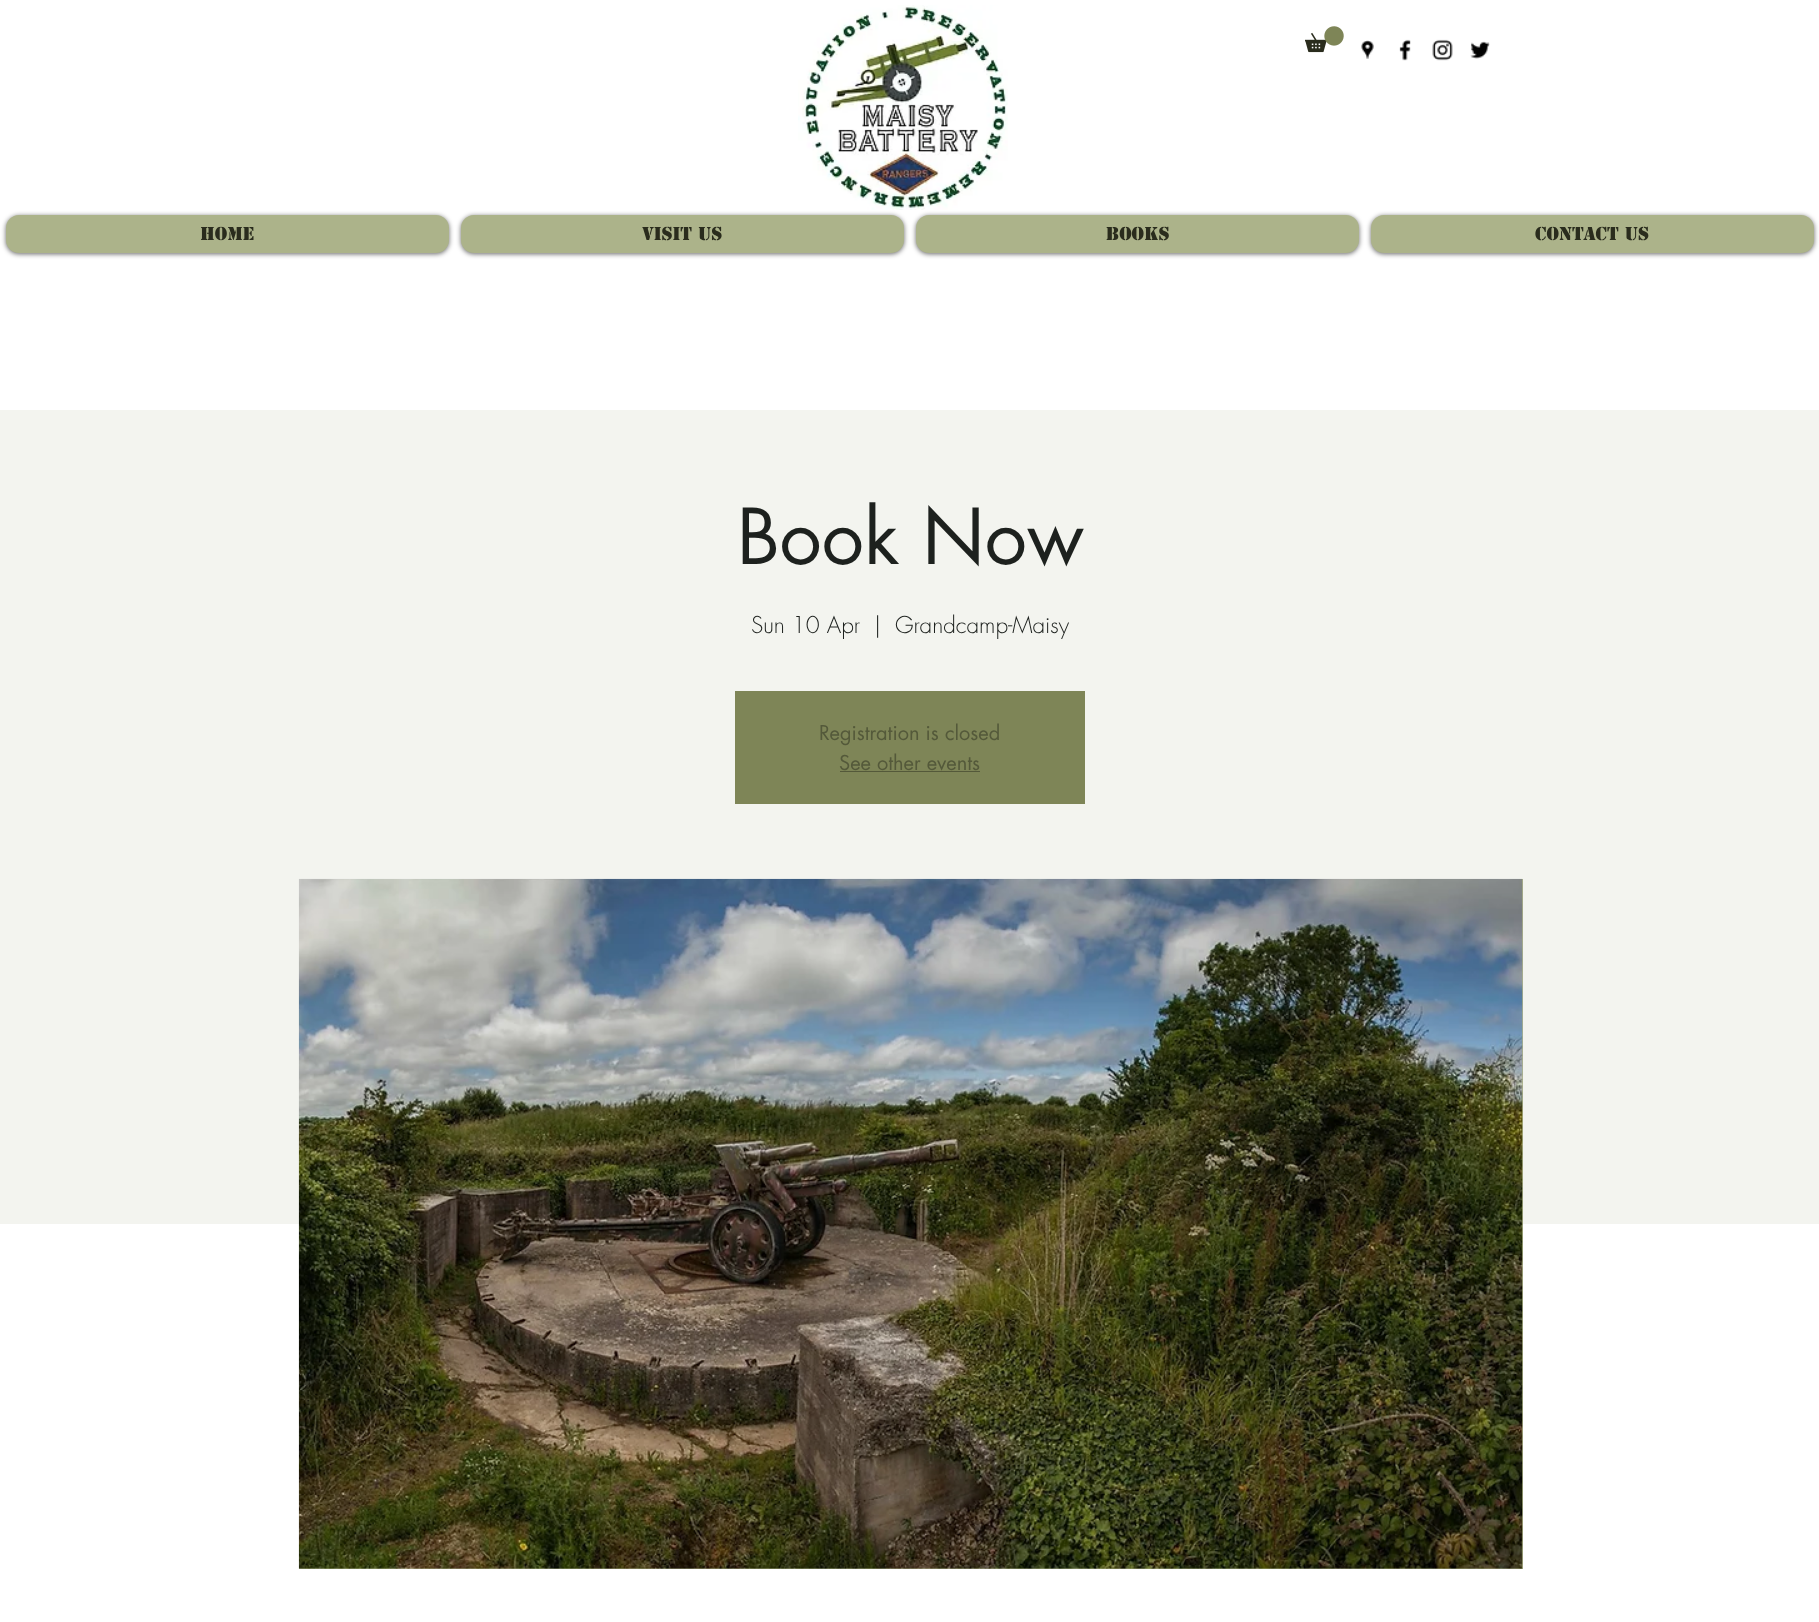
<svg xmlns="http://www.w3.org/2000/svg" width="1819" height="1622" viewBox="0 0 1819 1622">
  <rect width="100%" height="100%" fill="rgb(255,255,255)"/>
  <image x="798" y="5" width="210" height="205" href="pic1.png"/>
  <image x="1305" y="26" width="39" height="27" href="pic2.png"/>
  <image x="1361" y="40" width="13" height="19" href="pic3.png"/>
  <image x="1399" y="39" width="12" height="22" href="pic4.png"/>
  <image x="1432" y="39" width="21" height="22" href="pic5.png"/>
  <image x="1470" y="41" width="20" height="18" href="pic6.png"/>
  <rect x="6" y="216" width="443" height="38" rx="13" fill="rgba(0,0,0,0.6)" filter="blur(2.5px)"/>
  <rect x="6" y="215" width="443" height="38" rx="13" fill="rgb(172,179,138)"/>
  <text x="200" y="240" font-family="'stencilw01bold'" font-size="17.5" font-weight="bold" fill="rgb(42,44,29)">Home</text>
  <rect x="461" y="216" width="443" height="38" rx="13" fill="rgba(0,0,0,0.6)" filter="blur(2.5px)"/>
  <rect x="461" y="215" width="443" height="38" rx="13" fill="rgb(172,179,138)"/>
  <text x="642" y="240" font-family="'stencilw01bold'" font-size="17.5" font-weight="bold" fill="rgb(42,44,29)">Visit Us</text>
  <rect x="916" y="216" width="443" height="38" rx="13" fill="rgba(0,0,0,0.6)" filter="blur(2.5px)"/>
  <rect x="916" y="215" width="443" height="38" rx="13" fill="rgb(172,179,138)"/>
  <text x="1106" y="240" font-family="'stencilw01bold'" font-size="17.5" font-weight="bold" fill="rgb(42,44,29)">Books</text>
  <rect x="1371" y="216" width="443" height="38" rx="13" fill="rgba(0,0,0,0.6)" filter="blur(2.5px)"/>
  <rect x="1371" y="215" width="443" height="38" rx="13" fill="rgb(172,179,138)"/>
  <text x="1535" y="240" font-family="'stencilw01bold'" font-size="17.5" font-weight="bold" fill="rgb(42,44,29)">Contact Us</text>
  <rect x="0" y="410" width="1819" height="814" fill="rgb(243,244,239)"/>
  <text x="737" y="564" font-family="futura" font-size="75" fill="rgb(29,33,30)">Book Now</text>
  <g font-family="futura" font-size="22.5" font-weight="300" fill="rgb(29,33,30)">
    <text x="751" y="633">Sun 10 Apr</text>
    <text x="874" y="633">|</text>
    <text x="895" y="633">Grandcamp-Maisy</text>
  </g>
  <rect x="735" y="691" width="350" height="113" fill="rgb(126,133,87)"/>
  <g font-family="futura" font-size="20" fill="rgb(84,89,58)">
    <text x="819" y="740">Registration is closed</text>
    <text x="839" y="770">See other events</text>
  </g>
  <rect x="840" y="771" width="140" height="1" fill="rgb(84,89,58)"/>
  <rect x="299" y="879" width="1224" height="690" fill="rgb(172,179,138)"/>
  <image x="298" y="878" width="1225" height="691" href="pic7.png"/>
</svg>
